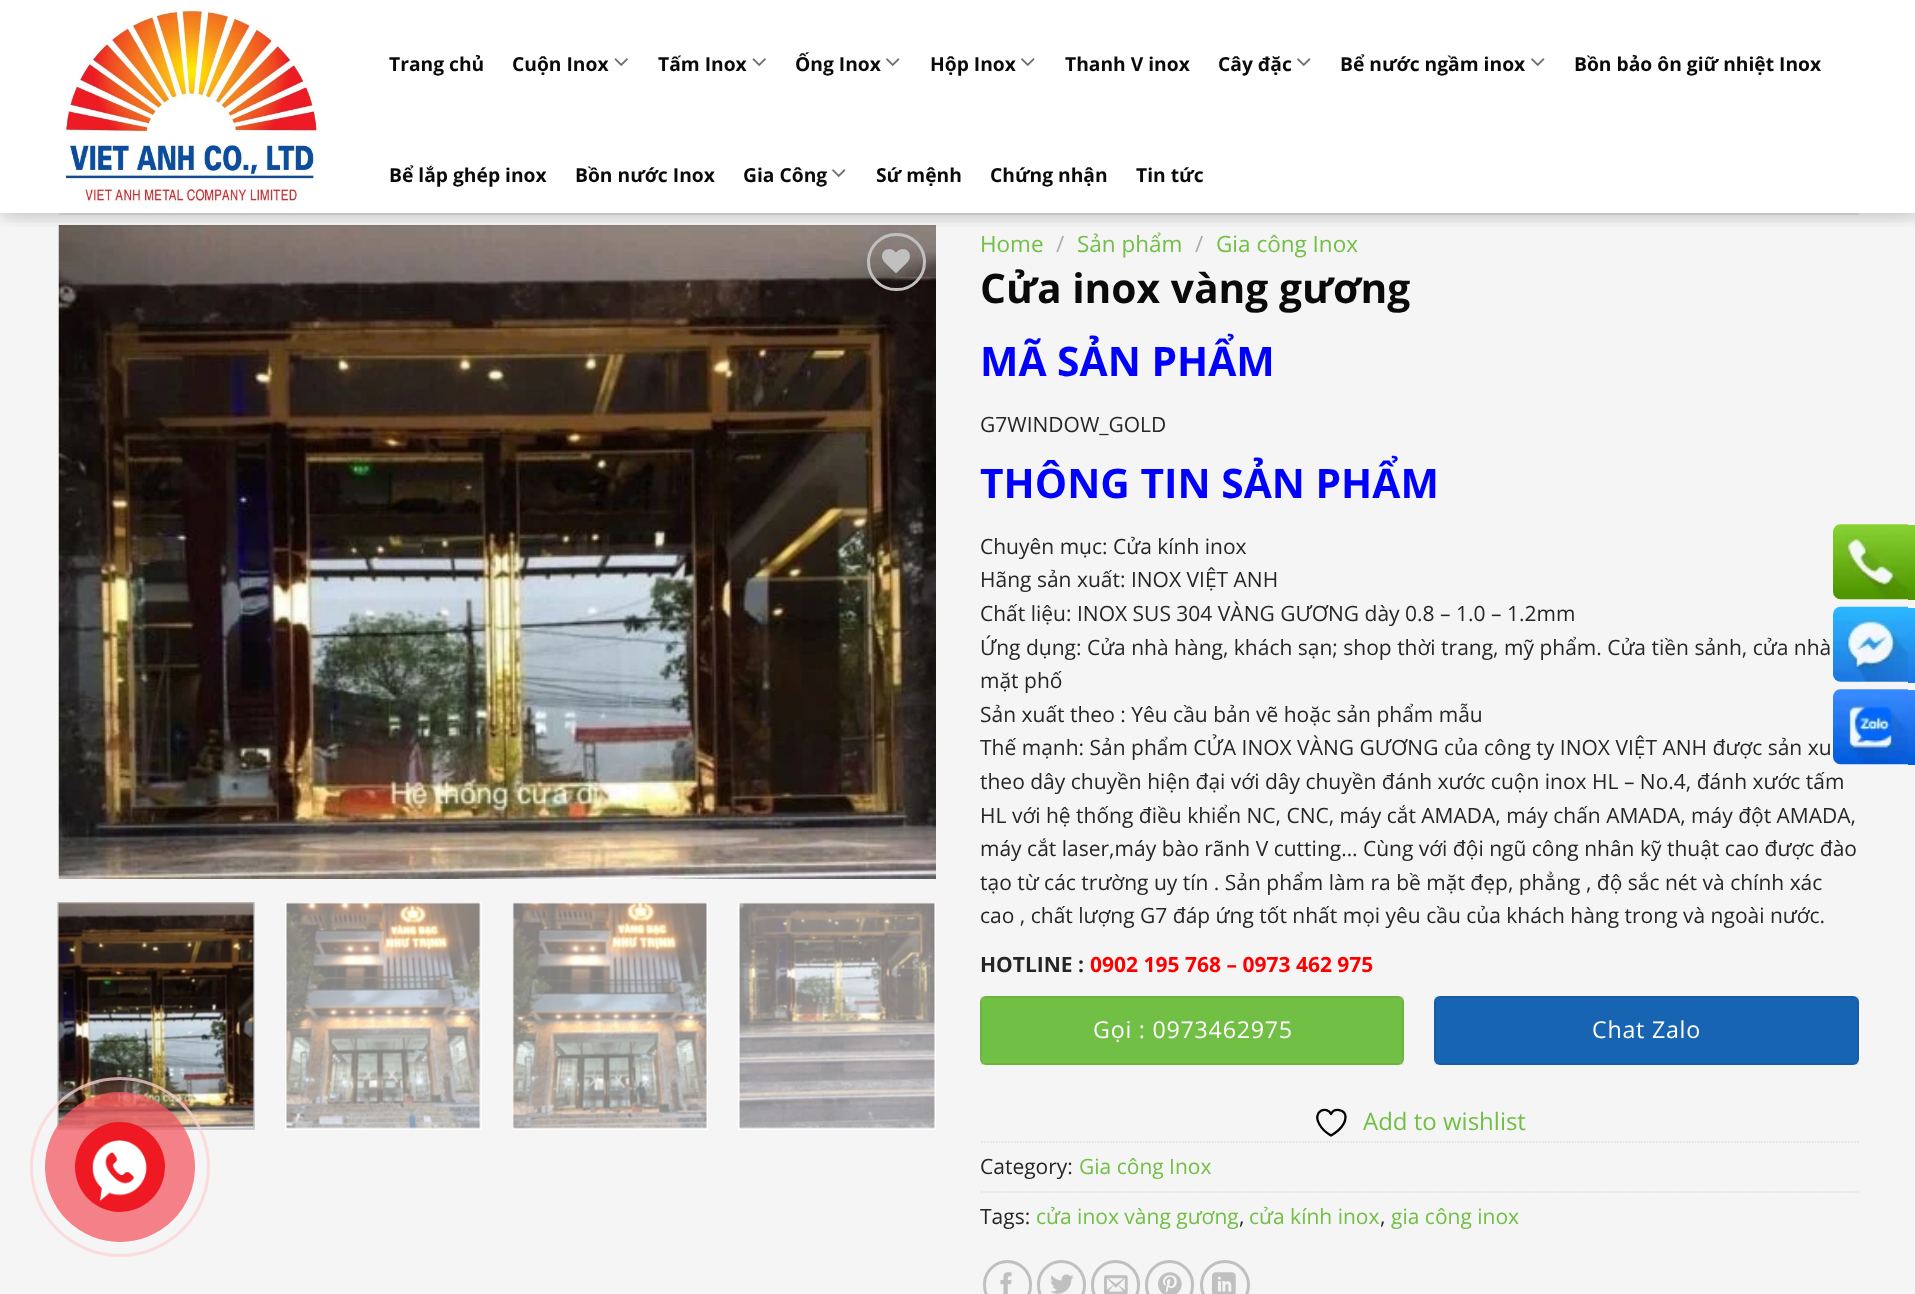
<svg xmlns="http://www.w3.org/2000/svg" width="1915" height="1294" viewBox="0 0 1915 1294">
  <defs>
    <clipPath id="clip1"><rect x="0" y="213" width="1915" height="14"/></clipPath>
    <clipPath id="clip2"><rect x="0" y="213" width="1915" height="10"/></clipPath>
    <linearGradient id="g1" gradientUnits="userSpaceOnUse" x1="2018" y1="524" x2="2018" y2="600"><stop offset="0" stop-color="rgb(138,211,54)"/><stop offset="0.92" stop-color="rgb(80,150,0)"/></linearGradient>
    <linearGradient id="g2" gradientUnits="userSpaceOnUse" x1="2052" y1="682" x2="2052" y2="607"><stop offset="0.01" stop-color="rgb(29,119,226)"/><stop offset="0.99" stop-color="rgb(44,183,255)"/></linearGradient>
    <linearGradient id="g3" gradientUnits="userSpaceOnUse" x1="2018" y1="689" x2="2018" y2="764"><stop offset="0" stop-color="rgb(58,139,255)"/><stop offset="1" stop-color="rgb(3,90,218)"/></linearGradient>
  </defs>
  <rect width="100%" height="100%" fill="rgb(255,255,255)"/>
  <rect x="0" y="213" width="1915" height="1081" fill="rgb(245,245,245)"/>
  <image x="58" y="225" width="878" height="654" href="pic4.png"/>
  <rect x="868.5" y="234.5" width="56" height="55" rx="27.5" fill="none" stroke="rgb(192,192,192)" stroke-width="3"/>
  <image x="882" y="249" width="28" height="24" href="pic5.png"/>
  <g clip-path="url(#clip1)">
    <rect x="3" y="3" width="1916" height="213" fill="rgba(0,0,0,0.09)" filter="blur(15px)"/>
  </g>
  <g clip-path="url(#clip2)">
    <rect x="2" y="2" width="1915" height="213" fill="rgba(0,0,0,0.15)" filter="blur(7.5px)"/>
  </g>
  <image x="65" y="9" width="254" height="195" href="pic1.png"/>
  <g font-family="Open Sans" font-size="19.25" font-weight="bold" fill="rgb(10,10,10)">
    <text x="389" y="71">Trang chủ</text>
    <text x="512" y="71">Cuộn Inox</text>
  </g>
  <image x="614" y="58" width="14" height="8" href="pic2.png"/>
  <text x="658" y="71" font-family="Open Sans" font-size="19.25" font-weight="bold" fill="rgb(10,10,10)">Tấm Inox</text>
  <image x="752" y="58" width="14" height="8" href="pic2.png"/>
  <text x="795" y="71" font-family="Open Sans" font-size="19.25" font-weight="bold" fill="rgb(10,10,10)">Ống Inox</text>
  <image x="886" y="58" width="14" height="8" href="pic3.png"/>
  <text x="930" y="71" font-family="Open Sans" font-size="19.25" font-weight="bold" fill="rgb(10,10,10)">Hộp Inox</text>
  <image x="1021" y="58" width="14" height="8" href="pic3.png"/>
  <g font-family="Open Sans" font-size="19.25" font-weight="bold" fill="rgb(10,10,10)">
    <text x="1065" y="71">Thanh V inox</text>
    <text x="1218" y="71">Cây đặc</text>
  </g>
  <image x="1297" y="58" width="14" height="8" href="pic3.png"/>
  <text x="1340" y="71" font-family="Open Sans" font-size="19.25" font-weight="bold" fill="rgb(10,10,10)">Bể nước ngầm inox</text>
  <image x="1531" y="58" width="14" height="8" href="pic3.png"/>
  <g font-family="Open Sans" font-size="19.25" font-weight="bold" fill="rgb(10,10,10)">
    <text x="1574" y="71">Bồn bảo ôn giữ nhiệt Inox</text>
    <text x="389" y="182">Bể lắp ghép inox</text>
    <text x="575" y="182">Bồn nước Inox</text>
    <text x="743" y="182">Gia Công</text>
  </g>
  <image x="832" y="169" width="14" height="8" href="pic3.png"/>
  <g font-family="Open Sans" font-size="19.25" font-weight="bold" fill="rgb(10,10,10)">
    <text x="876" y="182">Sứ mệnh</text>
    <text x="990" y="182">Chứng nhận</text>
    <text x="1136" y="182">Tin tức</text>
  </g>
  <rect x="59" y="213" width="1800" height="2" fill="rgb(196,196,196)"/>
  <rect x="59" y="1127" width="194" height="1" fill="rgb(255,255,255)"/>
  <rect x="58" y="903" width="196" height="226" fill="none" stroke="rgb(204,204,204)" stroke-width="2"/>
  <image x="58" y="902" width="196" height="227" href="pic6.png"/>
  <rect x="285" y="902" width="197" height="228" fill="rgb(255,255,255)"/>
  <image x="286" y="902" width="195" height="227" href="pic7.png"/>
  <rect x="512" y="902" width="196" height="228" fill="rgb(255,255,255)"/>
  <image x="512" y="902" width="195" height="227" href="pic8.png"/>
  <rect x="738" y="902" width="198" height="228" fill="rgb(255,255,255)"/>
  <image x="739" y="902" width="196" height="227" href="pic9.png"/>
  <text x="980" y="252" font-family="Open Sans" font-size="22.5" fill="rgb(113,191,68)">Home</text>
  <text x="1056" y="252" font-family="Open Sans" font-size="22.5" fill="rgb(171,171,171)">/</text>
  <text x="1077" y="252" font-family="Open Sans" font-size="22.5" fill="rgb(113,191,68)">Sản phẩm</text>
  <text x="1195" y="252" font-family="Open Sans" font-size="22.5" fill="rgb(171,171,171)">/</text>
  <text x="1216" y="252" font-family="Open Sans" font-size="22.5" fill="rgb(113,191,68)">Gia công Inox</text>
  <text x="980" y="303" font-family="Open Sans" font-size="40.75" font-weight="bold" fill="rgb(10,10,10)">Cửa inox vàng gương</text>
  <text x="980" y="376" font-family="Open Sans" font-size="40.75" font-weight="bold" fill="rgb(0,0,255)">MÃ SẢN PHẨM</text>
  <text x="980" y="432" font-family="Open Sans" font-size="21" fill="rgb(38,38,38)">G7WINDOW_GOLD</text>
  <text x="980" y="498" font-family="Open Sans" font-size="40.75" font-weight="bold" fill="rgb(0,0,255)">THÔNG TIN SẢN PHẨM</text>
  <g font-family="Open Sans" font-size="21" fill="rgb(38,38,38)">
    <text>
      <tspan x="980" y="554">Chuyên mục: Cửa kính inox</tspan>
      <tspan x="980" y="587">Hãng sản xuất: INOX VIỆT ANH</tspan>
      <tspan x="980" y="621">Chất liệu: INOX SUS 304 VÀNG GƯƠNG dày 0.8 – 1.0 – 1.2mm</tspan>
      <tspan x="980" y="655">Ứng dụng: Cửa nhà hàng, khách sạn; shop thời trang, mỹ phẩm. Cửa tiền sảnh, cửa nhà</tspan>
      <tspan x="980" y="688">mặt phố</tspan>
      <tspan x="980" y="722">Sản xuất theo : Yêu cầu bản vẽ hoặc sản phẩm mẫu</tspan>
      <tspan x="980" y="755">Thế mạnh: Sản phẩm CỬA INOX VÀNG GƯƠNG của công ty INOX VIỆT ANH được sản xu</tspan>
      <tspan x="980" y="789">theo dây chuyền hiện đại với dây chuyền đánh xước cuộn inox HL – No.4, đánh xước tấm</tspan>
      <tspan x="980" y="823">HL với hệ thống điều khiển NC, CNC, máy cắt AMADA, máy chấn AMADA, máy đột AMADA,</tspan>
      <tspan x="980" y="856">máy cắt laser,máy bào rãnh V cutting… Cùng với đội ngũ công nhân kỹ thuật cao được đào</tspan>
      <tspan x="980" y="890">tạo từ các trường uy tín . Sản phẩm làm ra bề mặt đẹp, phẳng , độ sắc nét và chính xác</tspan>
      <tspan x="980" y="923">cao , chất lượng G7 đáp ứng tốt nhất mọi yêu cầu của khách hàng trong và ngoài nước.</tspan>
    </text>
  </g>
  <text x="980" y="972" font-family="Open Sans" font-size="21" font-weight="bold" fill="rgb(38,38,38)">HOTLINE :</text>
  <text x="1090" y="972" font-family="Open Sans" font-size="21" font-weight="bold" fill="rgb(255,0,0)">0902 195 768 – 0973 462 975</text>
  <rect x="980" y="996" width="424" height="69" rx="6" fill="rgb(113,191,68)"/>
  <rect x="981" y="997" width="422" height="67" fill="none" stroke="rgba(0,0,0,0.05)" stroke-width="2"/>
  <text x="1093" y="1038" font-family="Open Sans" font-size="23.25" letter-spacing="0.75" fill="rgb(255,255,255)">Gọi : 0973462975</text>
  <rect x="1434" y="996" width="425" height="69" rx="6" fill="rgb(22,100,178)"/>
  <rect x="1435" y="997" width="423" height="67" fill="none" stroke="rgba(0,0,0,0.05)" stroke-width="2"/>
  <text x="1592" y="1038" font-family="Open Sans" font-size="23.25" letter-spacing="0.75" fill="rgb(255,255,255)">Chat Zalo</text>
  <path d="M1345.5 1117C1345.5 1109 1334 1107.5 1331 1114C1327.5 1105.5 1311.5 1110.5 1319.5 1124.5C1322 1129 1326.5 1133 1331 1135.5C1331 1135.5 1345.5 1128 1345.5 1117Z" fill="none" stroke="rgb(0,0,0)" stroke-width="2.3" stroke-linecap="round" stroke-linejoin="round"/>
  <text x="1363" y="1130" font-family="Open Sans" font-size="24" fill="rgb(113,191,68)">Add to wishlist</text>
  <path d="M981 1142H1858.5" fill="none" stroke="rgb(221,221,221)" stroke-width="1.5" stroke-dasharray="1.5 1.5"/>
  <text x="980" y="1174" font-family="Open Sans" font-size="21" fill="rgb(38,38,38)">Category:</text>
  <text x="1079" y="1174" font-family="Open Sans" font-size="21" fill="rgb(113,191,68)">Gia công Inox</text>
  <path d="M981 1192H1858.5" fill="none" stroke="rgb(221,221,221)" stroke-width="1.5" stroke-dasharray="1.5 1.5"/>
  <text x="980" y="1224" font-family="Open Sans" font-size="21" fill="rgb(38,38,38)">Tags:</text>
  <text x="1036" y="1224" font-family="Open Sans" font-size="21" fill="rgb(113,191,68)">cửa inox vàng gương</text>
  <text x="1239" y="1224" font-family="Open Sans" font-size="21" fill="rgb(38,38,38)">,</text>
  <text x="1249" y="1224" font-family="Open Sans" font-size="21" fill="rgb(113,191,68)">cửa kính inox</text>
  <text x="1380" y="1224" font-family="Open Sans" font-size="21" fill="rgb(38,38,38)">,</text>
  <text x="1391" y="1224" font-family="Open Sans" font-size="21" fill="rgb(113,191,68)">gia công inox</text>
  <rect x="984.5" y="1261.5" width="46" height="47" rx="23" fill="none" stroke="rgb(192,192,192)" stroke-width="3"/>
  <image x="1000" y="1272" width="12" height="22" href="pic10.png"/>
  <rect x="1038.5" y="1261.5" width="46" height="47" rx="23" fill="none" stroke="rgb(192,192,192)" stroke-width="3"/>
  <image x="1050" y="1274" width="24" height="20" href="pic11.png"/>
  <rect x="1092.5" y="1261.5" width="46" height="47" rx="23" fill="none" stroke="rgb(192,192,192)" stroke-width="3"/>
  <image x="1104" y="1275" width="24" height="19" href="pic12.png"/>
  <rect x="1146.5" y="1261.5" width="46" height="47" rx="23" fill="none" stroke="rgb(192,192,192)" stroke-width="3"/>
  <image x="1158" y="1272" width="24" height="22" href="pic13.png"/>
  <circle cx="1225" cy="1285" r="23.5" fill="none" stroke="rgb(192,192,192)" stroke-width="3"/>
  <image x="1212" y="1272" width="24" height="22" href="pic14.png"/>
  <image x="1833" y="524" width="75" height="76" href="pic15.png"/>
  <rect x="1908" y="525" width="7" height="75" fill="url(#g1)"/>
  <image x="1833" y="606" width="75" height="76" href="pic16.png"/>
  <rect x="1908" y="608" width="7" height="75" fill="url(#g2)"/>
  <image x="1833" y="689" width="75" height="76" href="pic17.png"/>
  <rect x="1908" y="690" width="7" height="75" fill="url(#g3)"/>
  <rect x="95" y="1122" width="45" height="90" rx="22.5" fill="rgb(238,24,35)"/>
  <circle cx="120" cy="1167" r="88.5" fill="none" stroke="rgba(252,209,211,0.75)" stroke-width="3"/>
  <circle cx="120" cy="1167" r="75" fill="rgba(241,90,97,0.75)"/>
  <circle cx="120" cy="1167" r="45" fill="rgb(238,25,35)"/>
  <image x="92" y="1140" width="55" height="61" href="pic18.png"/>
</svg>
